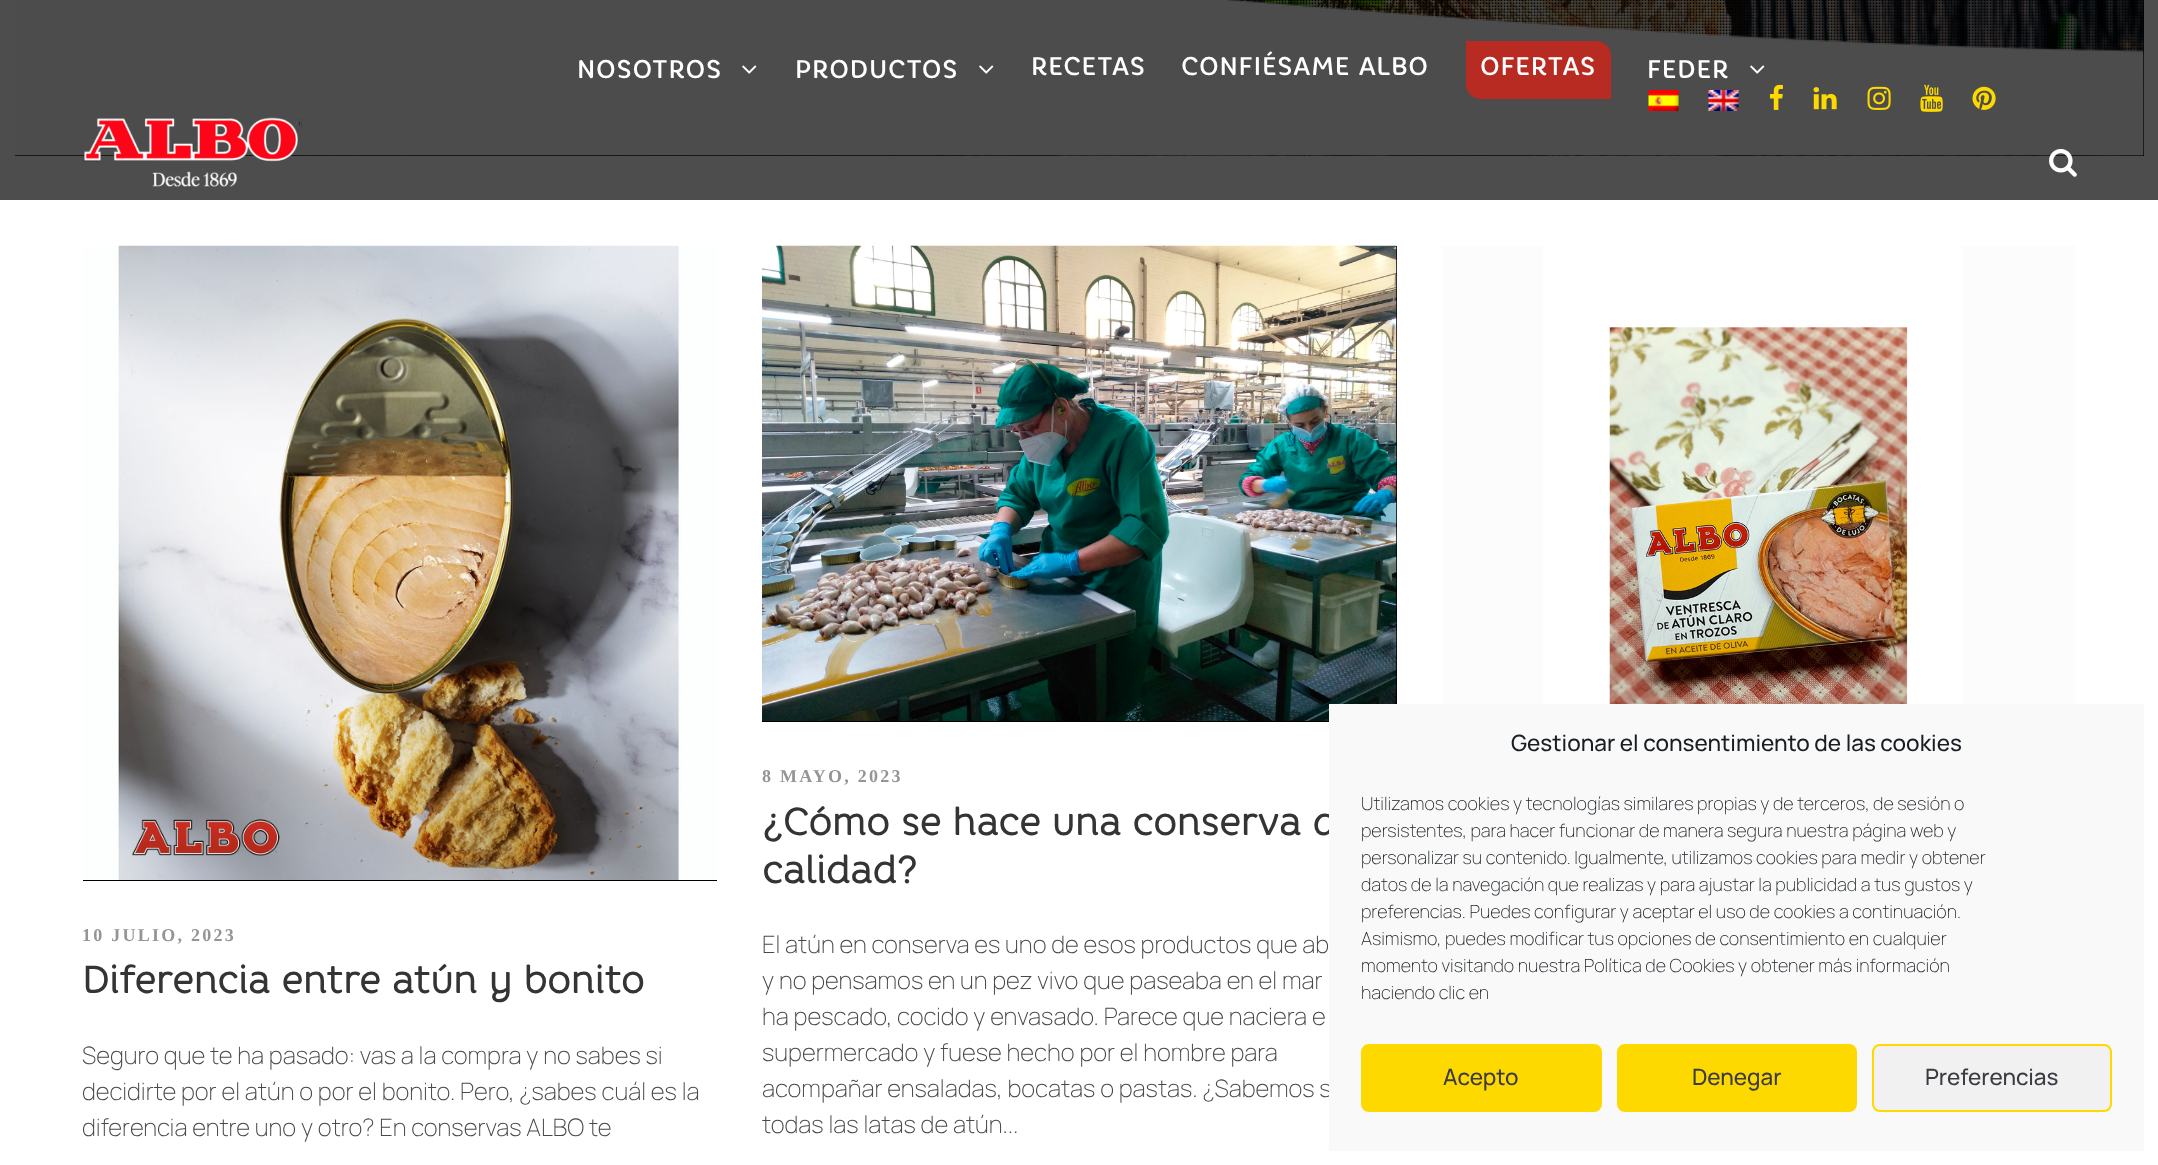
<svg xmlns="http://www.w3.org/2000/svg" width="2158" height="1165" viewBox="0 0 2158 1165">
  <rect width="100%" height="100%" fill="rgb(255,255,255)"/>
  <rect x="0" y="0" width="2158" height="200" fill="rgb(77,77,77)"/>
  <rect x="15" y="0" width="2129" height="156" fill="rgb(0,0,0)"/>
  <image x="15" y="0" width="2129" height="156" href="pic11.png"/>
  <image x="15" y="0" width="2129" height="156" href="pic12.png"/>
  <text x="577" y="78" font-family="'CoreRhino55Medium'" font-size="25.5" letter-spacing="0.75" fill="rgb(255,255,255)">NOSOTROS</text>
  <image x="742" y="65" width="15" height="9" href="pic1.png"/>
  <text x="795" y="78" font-family="'CoreRhino55Medium'" font-size="25.5" letter-spacing="0.75" fill="rgb(255,255,255)">PRODUCTOS</text>
  <image x="979" y="65" width="15" height="9" href="pic1.png"/>
  <g font-family="'CoreRhino55Medium'" font-size="25.5" letter-spacing="0.75" fill="rgb(255,255,255)">
    <text x="1031" y="75">RECETAS</text>
    <text x="1181" y="75">CONFIÉSAME ALBO</text>
  </g>
  <path d="M1466 41H1596C1604.5 41 1611 47.5 1611 56V99H1481C1472.5 99 1466 92.5 1466 84Z" fill="rgb(184,43,34)"/>
  <g font-family="'CoreRhino55Medium'" font-size="25.5" letter-spacing="0.75" fill="rgb(255,255,255)">
    <text x="1480" y="75">OFERTAS</text>
    <text x="1647" y="78">FEDER</text>
  </g>
  <image x="1750" y="65" width="15" height="9" href="pic1.png"/>
  <image x="1648" y="90" width="31" height="21" href="pic2.png"/>
  <image x="1708" y="90" width="31" height="21" href="pic3.png"/>
  <image x="1769" y="84" width="14" height="26" href="pic4.png"/>
  <image x="1813" y="87" width="24" height="23" href="pic5.png"/>
  <image x="1867" y="86" width="24" height="24" href="pic6.png"/>
  <image x="1920" y="84" width="23" height="28" href="pic7.png"/>
  <image x="1972" y="86" width="24" height="24" href="pic8.png"/>
  <image x="2049" y="148" width="28" height="29" href="pic9.png"/>
  <image x="83" y="117" width="222" height="70" href="pic10.png"/>
  <image x="1442" y="246" width="634" height="458" href="pic13.png"/>
  <rect x="83" y="880" width="634" height="1" fill="rgb(0,0,0)"/>
  <image x="83" y="245" width="634" height="635" href="pic14.png"/>
  <text x="82" y="941" font-family="Liberation Serif" font-size="18" font-weight="bold" letter-spacing="2.25" fill="rgb(149,149,149)">10 JULIO, 2023</text>
  <text x="82" y="993" font-family="'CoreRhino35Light'" font-size="37.5" font-weight="bold" fill="rgb(52,52,52)">Diferencia entre atún y bonito</text>
  <g font-family="Manrope" font-size="24" font-weight="200" fill="rgb(72,72,72)">
    <text>
      <tspan x="82" y="1064">Seguro que te ha pasado: vas a la compra y no sabes si</tspan>
      <tspan x="82" y="1100">decidirte por el atún o por el bonito. Pero, ¿sabes cuál es la</tspan>
      <tspan x="82" y="1136">diferencia entre uno y otro? En conservas ALBO te</tspan>
    </text>
  </g>
  <rect x="762" y="246" width="635" height="476" fill="rgb(0,0,0)"/>
  <image x="762" y="245" width="635" height="476" href="pic15.png"/>
  <text x="762" y="782" font-family="Liberation Serif" font-size="18" font-weight="bold" letter-spacing="2.25" fill="rgb(149,149,149)">8 MAYO, 2023</text>
  <g font-family="'CoreRhino35Light'" font-size="37.5" font-weight="bold" fill="rgb(52,52,52)">
    <text>
      <tspan x="762" y="835">¿Cómo se hace una conserva d</tspan>
      <tspan x="762" y="883">calidad?</tspan>
    </text>
  </g>
  <g font-family="Manrope" font-size="24" font-weight="200" fill="rgb(72,72,72)">
    <text>
      <tspan x="762" y="953">El atún en conserva es uno de esos productos que ab</tspan>
      <tspan x="762" y="989">y no pensamos en un pez vivo que paseaba en el mar</tspan>
      <tspan x="762" y="1025">ha pescado, cocido y envasado. Parece que naciera e</tspan>
      <tspan x="762" y="1061">supermercado y fuese hecho por el hombre para</tspan>
      <tspan x="762" y="1097">acompañar ensaladas, bocatas o pastas. ¿Sabemos s</tspan>
      <tspan x="762" y="1133">todas las latas de atún...</tspan>
    </text>
  </g>
  <rect x="1329" y="704" width="815" height="447" fill="rgb(249,249,249)"/>
  <text x="1511" y="751" font-family="Manrope" font-size="22.5" font-weight="500" fill="rgb(25,30,35)">Gestionar el consentimiento de las cookies</text>
  <g font-family="Manrope" font-size="18" font-weight="200" fill="rgb(25,30,35)">
    <text>
      <tspan x="1361" y="810">Utilizamos cookies y tecnologías similares propias y de terceros, de sesión o</tspan>
      <tspan x="1361" y="837">persistentes, para hacer funcionar de manera segura nuestra página web y</tspan>
      <tspan x="1361" y="864">personalizar su contenido. Igualmente, utilizamos cookies para medir y obtener</tspan>
      <tspan x="1361" y="891">datos de la navegación que realizas y para ajustar la publicidad a tus gustos y</tspan>
      <tspan x="1361" y="918">preferencias. Puedes configurar y aceptar el uso de cookies a continuación.</tspan>
      <tspan x="1361" y="945">Asimismo, puedes modificar tus opciones de consentimiento en cualquier</tspan>
      <tspan x="1361" y="972">momento visitando nuestra Política de Cookies y obtener más información</tspan>
      <tspan x="1361" y="999">haciendo clic en</tspan>
    </text>
  </g>
  <rect x="1362" y="1045" width="239" height="66" rx="7" fill="rgb(253,217,0)" stroke="rgb(253,217,0)" stroke-width="2"/>
  <text x="1443" y="1085" font-family="Manrope" font-size="22.5" font-weight="500" fill="rgb(59,60,67)">Acepto</text>
  <rect x="1618" y="1045" width="238" height="66" rx="7" fill="rgb(253,217,0)" stroke="rgb(253,217,0)" stroke-width="2"/>
  <text x="1692" y="1085" font-family="Manrope" font-size="22.5" font-weight="500" fill="rgb(59,60,67)">Denegar</text>
  <rect x="1873" y="1045" width="238" height="66" rx="7" fill="rgb(241,241,241)" stroke="rgb(253,217,0)" stroke-width="2"/>
  <text x="1925" y="1085" font-family="Manrope" font-size="22.5" font-weight="500" fill="rgb(59,60,67)">Preferencias</text>
</svg>
